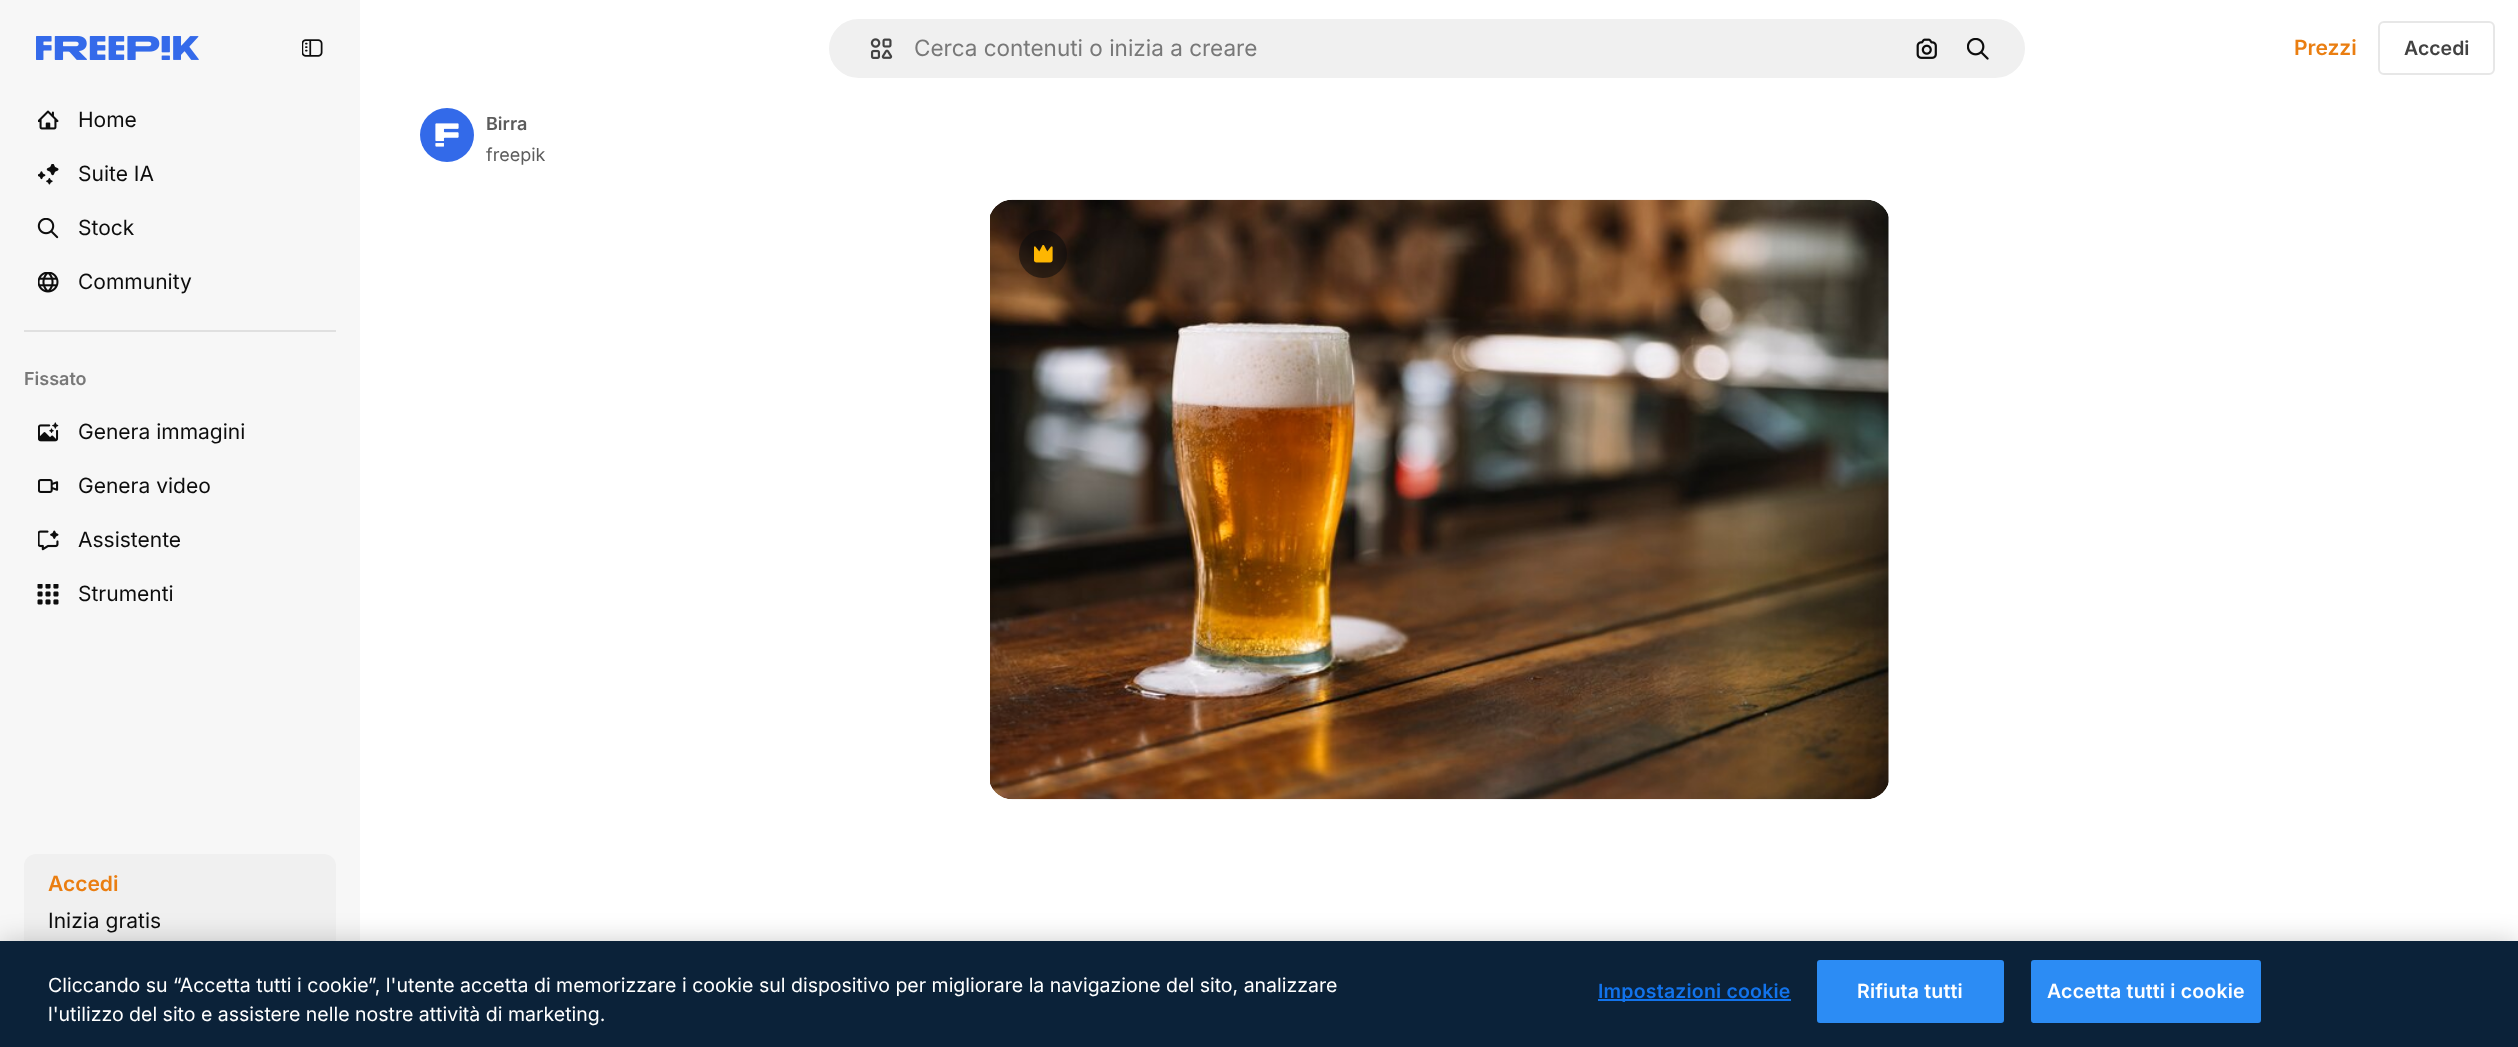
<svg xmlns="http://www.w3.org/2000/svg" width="2518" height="1047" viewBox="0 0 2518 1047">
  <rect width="100%" height="100%" fill="rgb(255,255,255)"/>
  <rect x="0" y="0" width="360" height="941" fill="rgb(247,247,247)"/>
  <image x="36" y="36" width="163" height="24" href="pic1.png"/>
  <image x="302" y="39" width="21" height="18" href="pic2.png"/>
  <image x="38" y="110" width="21" height="20" href="pic3.png"/>
  <text x="78" y="127" font-family="Inter" font-size="21" fill="rgb(13,13,13)">Home</text>
  <image x="38" y="164" width="21" height="21" href="pic4.png"/>
  <text x="78" y="181" font-family="Inter" font-size="21" fill="rgb(13,13,13)">Suite IA</text>
  <image x="37" y="218" width="22" height="21" href="pic5.png"/>
  <text x="78" y="235" font-family="Inter" font-size="21" fill="rgb(13,13,13)">Stock</text>
  <image x="38" y="272" width="21" height="21" href="pic6.png"/>
  <text x="78" y="289" font-family="Inter" font-size="21" fill="rgb(13,13,13)">Community</text>
  <rect x="24" y="330" width="312" height="2" fill="rgb(224,224,224)"/>
  <text x="24" y="385" font-family="Inter" font-size="18" font-weight="600" fill="rgb(120,120,120)">Fissato</text>
  <image x="38" y="422" width="21" height="20" href="pic7.png"/>
  <text x="78" y="439" font-family="Inter" font-size="21" fill="rgb(13,13,13)">Genera immagini</text>
  <image x="38" y="479" width="21" height="14" href="pic8.png"/>
  <text x="78" y="493" font-family="Inter" font-size="21" fill="rgb(13,13,13)">Genera video</text>
  <image x="38" y="530" width="21" height="21" href="pic9.png"/>
  <text x="78" y="547" font-family="Inter" font-size="21" fill="rgb(13,13,13)">Assistente</text>
  <image x="37" y="584" width="22" height="21" href="pic10.png"/>
  <text x="78" y="601" font-family="Inter" font-size="21" fill="rgb(13,13,13)">Strumenti</text>
  <rect x="24" y="854" width="312" height="97" rx="12" fill="rgb(240,240,240)"/>
  <text x="48" y="891" font-family="Inter" font-size="21" font-weight="600" fill="rgb(234,126,17)">Accedi</text>
  <text x="48" y="928" font-family="Inter" font-size="21" fill="rgb(13,13,13)">Inizia gratis</text>
  <rect x="828" y="18" width="1198" height="61" rx="30.5" fill="rgb(240,240,240)" stroke="rgb(255,255,255)" stroke-width="2"/>
  <image x="870" y="38" width="23" height="21" href="pic11.png"/>
  <text x="914" y="56" font-family="Inter" font-size="22.5" fill="rgb(120,120,120)">Cerca contenuti o inizia a creare</text>
  <image x="1916" y="38" width="21" height="21" href="pic12.png"/>
  <image x="1967" y="38" width="22" height="22" href="pic13.png"/>
  <text x="2294" y="55" font-family="Inter" font-size="21" font-weight="600" fill="rgb(234,126,17)">Prezzi</text>
  <rect x="2379" y="22" width="115" height="52" rx="5" fill="none" stroke="rgb(231,231,231)" stroke-width="2"/>
  <text x="2404" y="55" font-family="Inter" font-size="19.5" font-weight="600" fill="rgb(66,66,66)">Accedi</text>
  <image x="420" y="108" width="54" height="54" href="pic14.png"/>
  <text x="486" y="130" font-family="Inter" font-size="18" font-weight="600" fill="rgb(92,92,92)">Birra</text>
  <text x="486" y="161" font-family="Inter" font-size="18" fill="rgb(92,92,92)">freepik</text>
  <image x="990" y="199" width="899" height="601" href="pic15.png"/>
  <circle cx="1043" cy="254" r="24" fill="rgba(13,13,13,0.6)"/>
  <image x="1034" y="245" width="19" height="18" href="pic16.png"/>
  <rect x="0" y="941" width="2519" height="106" fill="rgba(0,0,0,0.2)" filter="blur(13.5px)"/>
  <rect x="0" y="941" width="2518" height="106" fill="rgb(11,34,57)"/>
  <g font-family="Inter" font-size="19.5" fill="rgb(255,255,255)">
    <text>
      <tspan x="48" y="992">Cliccando su “Accetta tutti i cookie”, l'utente accetta di memorizzare i cookie sul dispositivo per migliorare la navigazione del sito, analizzare</tspan>
      <tspan x="48" y="1021">l'utilizzo del sito e assistere nelle nostre attività di marketing.</tspan>
    </text>
  </g>
  <rect x="1598" y="999" width="193" height="2" fill="rgb(18,115,235)"/>
  <text x="1598" y="998" font-family="Inter" font-size="19.5" font-weight="600" letter-spacing="0.2" fill="rgb(18,115,235)">Impostazioni cookie</text>
  <rect x="1818" y="961" width="185" height="61" rx="2" fill="rgb(44,140,244)" stroke="rgb(44,140,244)" stroke-width="2"/>
  <text x="1857" y="998" font-family="Inter" font-size="19.5" font-weight="600" letter-spacing="0.2" fill="rgb(255,255,255)">Rifiuta tutti</text>
  <rect x="2032" y="961" width="228" height="61" rx="2" fill="rgb(44,140,244)" stroke="rgb(44,140,244)" stroke-width="2"/>
  <text x="2047" y="998" font-family="Inter" font-size="19.5" font-weight="600" letter-spacing="0.2" fill="rgb(255,255,255)">Accetta tutti i cookie</text>
</svg>
